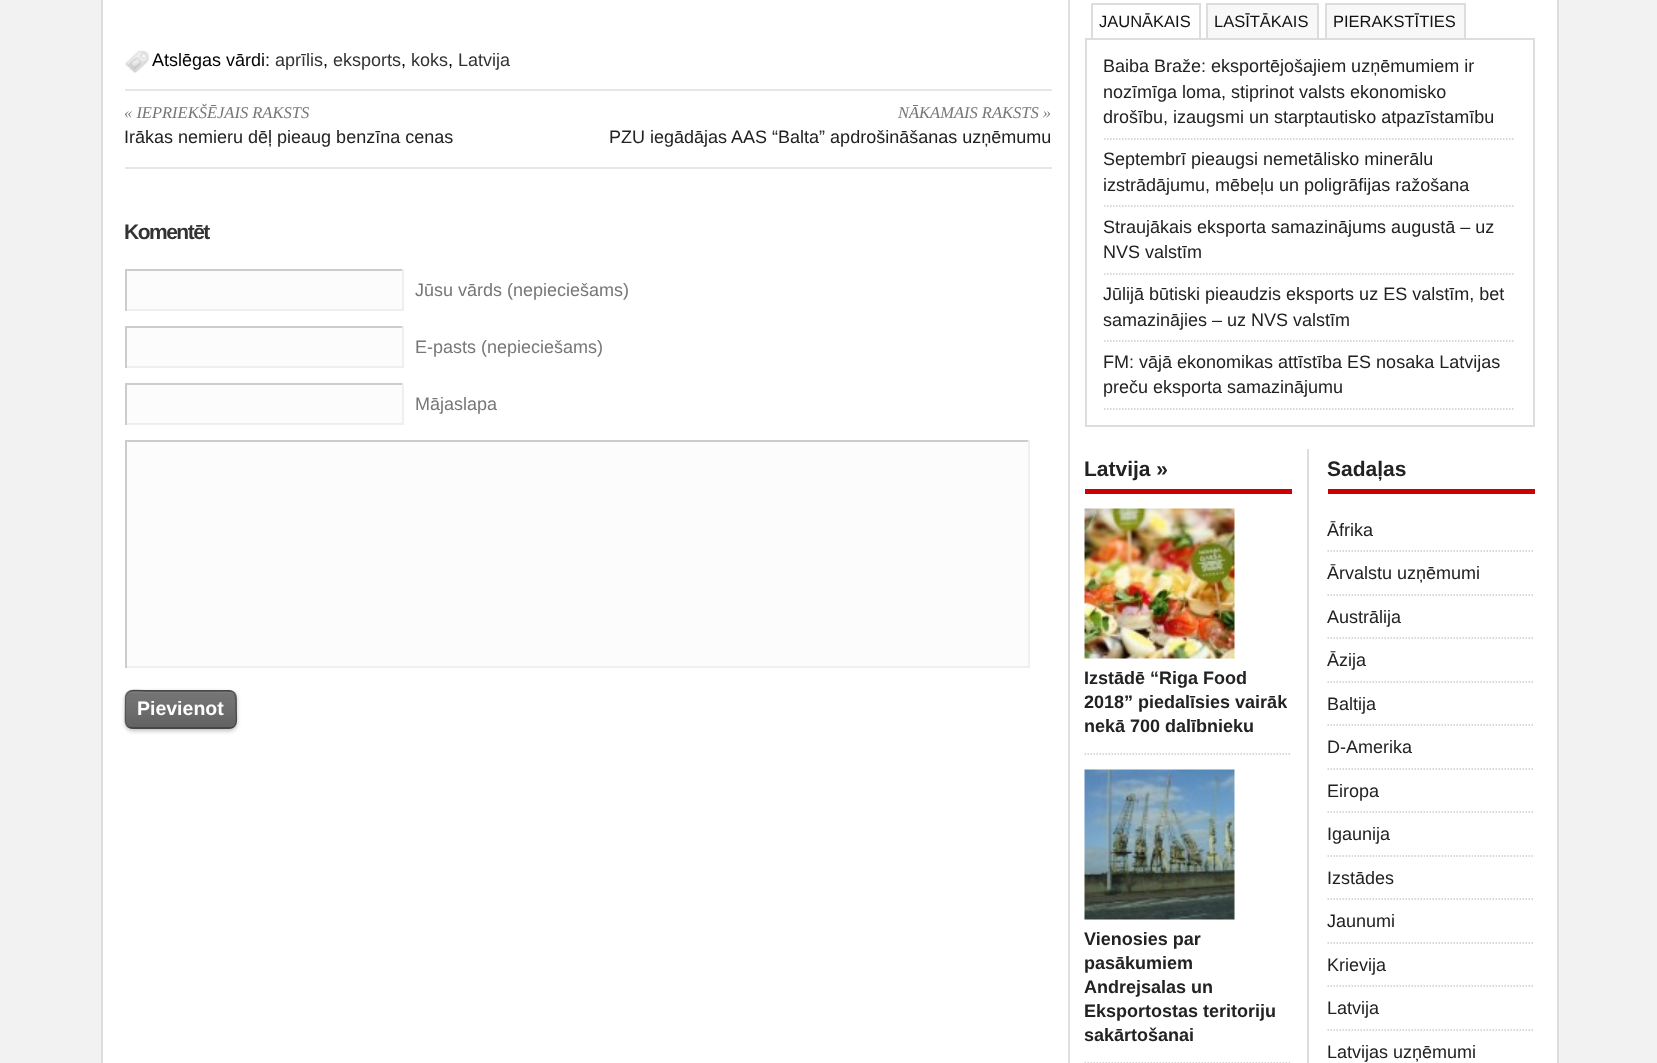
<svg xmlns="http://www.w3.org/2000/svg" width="1657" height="1063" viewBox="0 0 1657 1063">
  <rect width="100%" height="100%" fill="rgb(242,242,242)"/>
  <rect x="102" y="-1" width="1456" height="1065" fill="rgb(255,255,255)" stroke="rgb(221,221,221)" stroke-width="2"/>
  <image x="125" y="50" width="24" height="23" href="pic1.png"/>
  <text x="152" y="66" font-family="Liberation Sans" font-size="18" fill="rgb(0,0,0)">Atslēgas vārdi:</text>
  <text x="275" y="66" font-family="Liberation Sans" font-size="18" fill="rgb(51,51,51)">aprīlis</text>
  <text x="323" y="66" font-family="Liberation Sans" font-size="18" fill="rgb(0,0,0)">,</text>
  <text x="333" y="66" font-family="Liberation Sans" font-size="18" fill="rgb(51,51,51)">eksports</text>
  <text x="401" y="66" font-family="Liberation Sans" font-size="18" fill="rgb(0,0,0)">,</text>
  <text x="411" y="66" font-family="Liberation Sans" font-size="18" fill="rgb(51,51,51)">koks</text>
  <text x="448" y="66" font-family="Liberation Sans" font-size="18" fill="rgb(0,0,0)">,</text>
  <text x="458" y="66" font-family="Liberation Sans" font-size="18" fill="rgb(51,51,51)">Latvija</text>
  <rect x="125" y="89" width="927" height="2" fill="rgb(230,230,230)"/>
  <text x="124" y="118" font-family="Liberation Serif" font-size="16.5" font-style="italic" fill="rgb(119,119,119)">« IEPRIEKŠĒJAIS RAKSTS</text>
  <text x="124" y="143" font-family="Liberation Sans" font-size="18" fill="rgb(34,34,34)">Irākas nemieru dēļ pieaug benzīna cenas</text>
  <text x="898" y="118" font-family="Liberation Serif" font-size="16.5" font-style="italic" fill="rgb(119,119,119)">NĀKAMAIS RAKSTS »</text>
  <text x="609" y="143" font-family="Liberation Sans" font-size="18" fill="rgb(34,34,34)">PZU iegādājas AAS “Balta” apdrošināšanas uzņēmumu</text>
  <rect x="125" y="167" width="927" height="2" fill="rgb(230,230,230)"/>
  <text x="124" y="239" font-family="Liberation Sans" font-size="21" font-weight="bold" letter-spacing="-1.5" fill="rgb(51,51,51)">Komentēt</text>
  <rect x="127" y="271" width="275" height="38" fill="rgb(252,252,252)"/>
  <rect x="125" y="269" width="279" height="2" fill="rgb(204,204,204)"/>
  <rect x="402" y="269" width="2" height="42" fill="rgb(239,239,239)"/>
  <rect x="125" y="309" width="279" height="2" fill="rgb(239,239,239)"/>
  <rect x="125" y="269" width="2" height="42" fill="rgb(204,204,204)"/>
  <text x="415" y="296" font-family="Liberation Sans" font-size="18" fill="rgb(119,119,119)">Jūsu vārds (nepieciešams)</text>
  <rect x="127" y="328" width="275" height="38" fill="rgb(252,252,252)"/>
  <rect x="125" y="326" width="279" height="2" fill="rgb(204,204,204)"/>
  <rect x="402" y="326" width="2" height="42" fill="rgb(239,239,239)"/>
  <rect x="125" y="366" width="279" height="2" fill="rgb(239,239,239)"/>
  <rect x="125" y="326" width="2" height="42" fill="rgb(204,204,204)"/>
  <text x="415" y="353" font-family="Liberation Sans" font-size="18" fill="rgb(119,119,119)">E-pasts (nepieciešams)</text>
  <rect x="127" y="385" width="275" height="38" fill="rgb(252,252,252)"/>
  <rect x="125" y="383" width="279" height="2" fill="rgb(204,204,204)"/>
  <rect x="402" y="383" width="2" height="42" fill="rgb(239,239,239)"/>
  <rect x="125" y="423" width="279" height="2" fill="rgb(239,239,239)"/>
  <rect x="125" y="383" width="2" height="42" fill="rgb(204,204,204)"/>
  <text x="415" y="410" font-family="Liberation Sans" font-size="18" fill="rgb(119,119,119)">Mājaslapa</text>
  <rect x="127" y="442" width="901" height="224" fill="rgb(252,252,252)"/>
  <rect x="125" y="440" width="904" height="2" fill="rgb(204,204,204)"/>
  <rect x="1028" y="440" width="2" height="228" fill="rgb(239,239,239)"/>
  <rect x="125" y="666" width="904" height="2" fill="rgb(239,239,239)"/>
  <rect x="125" y="440" width="2" height="228" fill="rgb(204,204,204)"/>
  <rect x="125" y="692" width="112" height="39" rx="8" fill="rgba(0,0,0,0.25)" filter="blur(2px)"/>
  <rect x="125" y="690" width="112" height="39" rx="8" fill="rgb(102,102,102)"/>
  <image x="125" y="690" width="112" height="39" href="pic2.png"/>
  <path d="M234.5 726.5C233 727.5 231.5 728 229.5 728H132C130 728 128.5 727.5 127 726.5" fill="none" stroke="rgba(0,0,0,0.35)" stroke-width="1.5"/>
  <path d="M127 726.5C125 724 125 720.5 125 717.5L125.5 696C127 687 144.5 691 148 691H213C236.5 691 236 687.5 236 709.5C236 714 238 723 234.5 726.5" fill="none" stroke="rgba(0,0,0,0.25)" stroke-width="1.5"/>
  <text x="137" y="715" font-family="Liberation Sans" font-size="19.5" font-weight="bold" fill="rgb(255,255,255)">Pievienot</text>
  <rect x="1068" y="0" width="2" height="1063" fill="rgb(224,224,224)"/>
  <rect x="1085" y="38" width="450" height="2" fill="rgb(221,221,221)"/>
  <text x="1099" y="27" font-family="Liberation Sans" font-size="16.5" fill="rgb(17,17,17)">JAUNĀKAIS</text>
  <rect x="1091" y="3" width="109" height="2" fill="rgb(221,221,221)"/>
  <rect x="1199" y="3" width="2" height="35" fill="rgb(221,221,221)"/>
  <rect x="1091" y="3" width="2" height="35" fill="rgb(221,221,221)"/>
  <rect x="1208" y="5" width="109" height="33" fill="rgb(248,248,248)"/>
  <text x="1214" y="27" font-family="Liberation Sans" font-size="16.5" fill="rgb(17,17,17)">LASĪTĀKAIS</text>
  <rect x="1206" y="3" width="113" height="2" fill="rgb(221,221,221)"/>
  <rect x="1317" y="3" width="2" height="35" fill="rgb(221,221,221)"/>
  <rect x="1206" y="3" width="2" height="35" fill="rgb(221,221,221)"/>
  <rect x="1327" y="5" width="137" height="33" fill="rgb(248,248,248)"/>
  <text x="1333" y="27" font-family="Liberation Sans" font-size="16.5" fill="rgb(17,17,17)">PIERAKSTĪTIES</text>
  <rect x="1325" y="3" width="141" height="2" fill="rgb(221,221,221)"/>
  <rect x="1464" y="3" width="2" height="35" fill="rgb(221,221,221)"/>
  <rect x="1325" y="3" width="2" height="35" fill="rgb(221,221,221)"/>
  <rect x="1533" y="39" width="2" height="387" fill="rgb(221,221,221)"/>
  <rect x="1085" y="425" width="450" height="2" fill="rgb(221,221,221)"/>
  <rect x="1085" y="39" width="2" height="387" fill="rgb(221,221,221)"/>
  <path d="M1104 139H1515" fill="none" stroke="rgb(204,204,204)" stroke-width="1.5" stroke-dasharray="1.5 1.5"/>
  <g font-family="Liberation Sans" font-size="18" fill="rgb(34,34,34)">
    <text>
      <tspan x="1103" y="72">Baiba Braže: eksportējošajiem uzņēmumiem ir</tspan>
      <tspan x="1103" y="98">nozīmīga loma, stiprinot valsts ekonomisko</tspan>
      <tspan x="1103" y="123">drošību, izaugsmi un starptautisko atpazīstamību</tspan>
    </text>
  </g>
  <path d="M1104 206H1515" fill="none" stroke="rgb(204,204,204)" stroke-width="1.5" stroke-dasharray="1.5 1.5"/>
  <g font-family="Liberation Sans" font-size="18" fill="rgb(34,34,34)">
    <text>
      <tspan x="1103" y="165">Septembrī pieaugsi nemetālisko minerālu</tspan>
      <tspan x="1103" y="191">izstrādājumu, mēbeļu un poligrāfijas ražošana</tspan>
    </text>
  </g>
  <path d="M1104 274H1515" fill="none" stroke="rgb(204,204,204)" stroke-width="1.5" stroke-dasharray="1.5 1.5"/>
  <g font-family="Liberation Sans" font-size="18" fill="rgb(34,34,34)">
    <text>
      <tspan x="1103" y="233">Straujākais eksporta samazinājums augustā – uz</tspan>
      <tspan x="1103" y="258">NVS valstīm</tspan>
    </text>
  </g>
  <path d="M1104 341H1515" fill="none" stroke="rgb(204,204,204)" stroke-width="1.5" stroke-dasharray="1.5 1.5"/>
  <g font-family="Liberation Sans" font-size="18" fill="rgb(34,34,34)">
    <text>
      <tspan x="1103" y="300">Jūlijā būtiski pieaudzis eksports uz ES valstīm, bet</tspan>
      <tspan x="1103" y="326">samazinājies – uz NVS valstīm</tspan>
    </text>
  </g>
  <path d="M1104 409H1515" fill="none" stroke="rgb(204,204,204)" stroke-width="1.5" stroke-dasharray="1.5 1.5"/>
  <g font-family="Liberation Sans" font-size="18" fill="rgb(34,34,34)">
    <text>
      <tspan x="1103" y="368">FM: vājā ekonomikas attīstība ES nosaka Latvijas</tspan>
      <tspan x="1103" y="393">preču eksporta samazinājumu</tspan>
    </text>
  </g>
  <rect x="1307" y="449" width="2" height="614" fill="rgb(221,221,221)"/>
  <rect x="1085" y="489" width="207" height="5" fill="rgb(204,0,0)"/>
  <text x="1084" y="476" font-family="Liberation Sans" font-size="21" font-weight="bold" fill="rgb(34,34,34)">Latvija »</text>
  <image x="1084" y="508" width="151" height="151" href="pic3.png"/>
  <path d="M1084.5 754H1291.5" fill="none" stroke="rgb(204,204,204)" stroke-width="1.5" stroke-dasharray="1.5 1.5"/>
  <g font-family="Liberation Sans" font-size="18" font-weight="bold" fill="rgb(34,34,34)">
    <text>
      <tspan x="1084" y="684">Izstādē “Riga Food</tspan>
      <tspan x="1084" y="708">2018” piedalīsies vairāk</tspan>
      <tspan x="1084" y="732">nekā 700 dalībnieku</tspan>
    </text>
  </g>
  <image x="1084" y="769" width="151" height="151" href="pic4.png"/>
  <path d="M1084.5 1063H1291.5" fill="none" stroke="rgb(204,204,204)" stroke-width="1.5" stroke-dasharray="1.5 1.5"/>
  <g font-family="Liberation Sans" font-size="18" font-weight="bold" fill="rgb(34,34,34)">
    <text>
      <tspan x="1084" y="945">Vienosies par</tspan>
      <tspan x="1084" y="969">pasākumiem</tspan>
      <tspan x="1084" y="993">Andrejsalas un</tspan>
      <tspan x="1084" y="1017">Eksportostas teritoriju</tspan>
      <tspan x="1084" y="1041">sakārtošanai</tspan>
    </text>
  </g>
  <rect x="1328" y="489" width="207" height="5" fill="rgb(204,0,0)"/>
  <text x="1327" y="476" font-family="Liberation Sans" font-size="21" font-weight="bold" fill="rgb(34,34,34)">Sadaļas</text>
  <path d="M1327.5 551H1534.5" fill="none" stroke="rgb(204,204,204)" stroke-width="1.5" stroke-dasharray="1.5 1.5"/>
  <text x="1327" y="536" font-family="Liberation Sans" font-size="18" fill="rgb(34,34,34)">Āfrika</text>
  <path d="M1327.5 595H1534.5" fill="none" stroke="rgb(204,204,204)" stroke-width="1.5" stroke-dasharray="1.5 1.5"/>
  <text x="1327" y="579" font-family="Liberation Sans" font-size="18" fill="rgb(34,34,34)">Ārvalstu uzņēmumi</text>
  <path d="M1327.5 638H1534.5" fill="none" stroke="rgb(204,204,204)" stroke-width="1.5" stroke-dasharray="1.5 1.5"/>
  <text x="1327" y="623" font-family="Liberation Sans" font-size="18" fill="rgb(34,34,34)">Austrālija</text>
  <path d="M1327.5 682H1534.5" fill="none" stroke="rgb(204,204,204)" stroke-width="1.5" stroke-dasharray="1.5 1.5"/>
  <text x="1327" y="666" font-family="Liberation Sans" font-size="18" fill="rgb(34,34,34)">Āzija</text>
  <path d="M1327.5 725H1534.5" fill="none" stroke="rgb(204,204,204)" stroke-width="1.5" stroke-dasharray="1.5 1.5"/>
  <text x="1327" y="710" font-family="Liberation Sans" font-size="18" fill="rgb(34,34,34)">Baltija</text>
  <path d="M1327.5 769H1534.5" fill="none" stroke="rgb(204,204,204)" stroke-width="1.5" stroke-dasharray="1.5 1.5"/>
  <text x="1327" y="753" font-family="Liberation Sans" font-size="18" fill="rgb(34,34,34)">D-Amerika</text>
  <path d="M1327.5 812H1534.5" fill="none" stroke="rgb(204,204,204)" stroke-width="1.5" stroke-dasharray="1.5 1.5"/>
  <text x="1327" y="797" font-family="Liberation Sans" font-size="18" fill="rgb(34,34,34)">Eiropa</text>
  <path d="M1327.5 856H1534.5" fill="none" stroke="rgb(204,204,204)" stroke-width="1.5" stroke-dasharray="1.5 1.5"/>
  <text x="1327" y="840" font-family="Liberation Sans" font-size="18" fill="rgb(34,34,34)">Igaunija</text>
  <path d="M1327.5 899H1534.5" fill="none" stroke="rgb(204,204,204)" stroke-width="1.5" stroke-dasharray="1.5 1.5"/>
  <text x="1327" y="884" font-family="Liberation Sans" font-size="18" fill="rgb(34,34,34)">Izstādes</text>
  <path d="M1327.5 943H1534.5" fill="none" stroke="rgb(204,204,204)" stroke-width="1.5" stroke-dasharray="1.5 1.5"/>
  <text x="1327" y="927" font-family="Liberation Sans" font-size="18" fill="rgb(34,34,34)">Jaunumi</text>
  <path d="M1327.5 986H1534.5" fill="none" stroke="rgb(204,204,204)" stroke-width="1.5" stroke-dasharray="1.5 1.5"/>
  <text x="1327" y="971" font-family="Liberation Sans" font-size="18" fill="rgb(34,34,34)">Krievija</text>
  <path d="M1327.5 1030H1534.5" fill="none" stroke="rgb(204,204,204)" stroke-width="1.5" stroke-dasharray="1.5 1.5"/>
  <g font-family="Liberation Sans" font-size="18" fill="rgb(34,34,34)">
    <text x="1327" y="1014">Latvija</text>
    <text x="1327" y="1058">Latvijas uzņēmumi</text>
  </g>
</svg>
